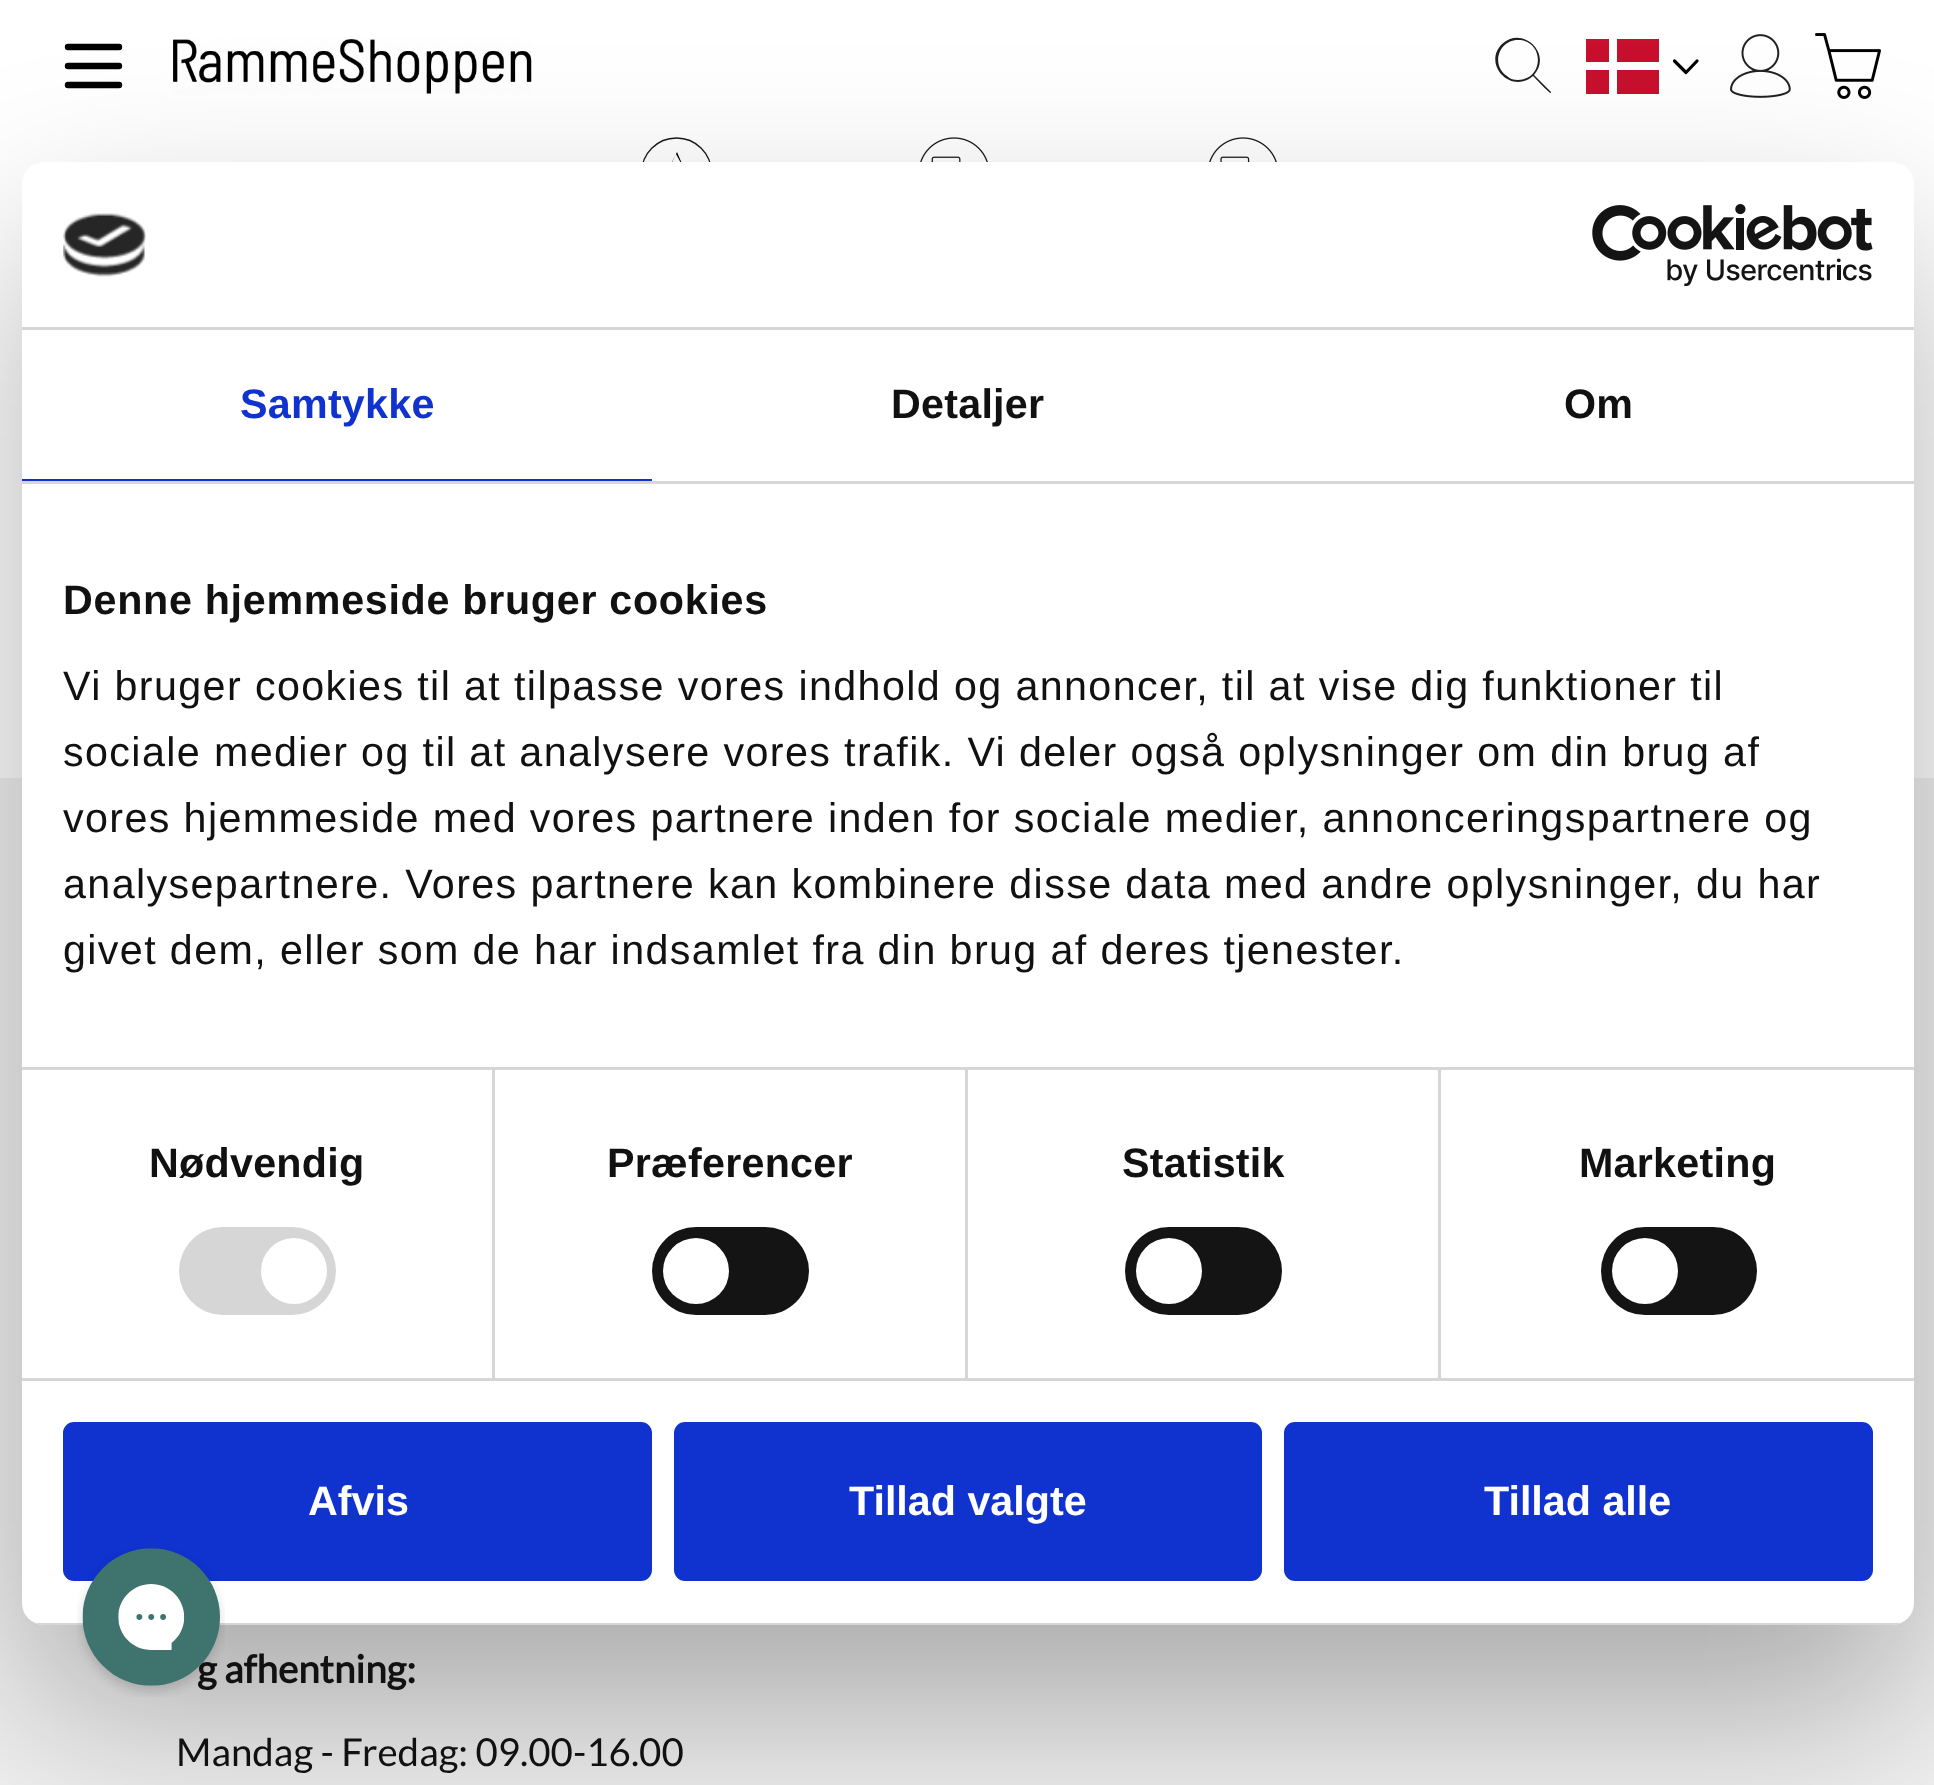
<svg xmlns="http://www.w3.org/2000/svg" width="1934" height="1785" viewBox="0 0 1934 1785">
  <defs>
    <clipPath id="clip1"><rect x="22" y="162" width="1892" height="1463" rx="22"/></clipPath>
  </defs>
  <rect width="100%" height="100%" fill="rgb(255,255,255)"/>
  <path d="M68 47H119M68 66H119M68 85H119" fill="none" stroke="rgb(0,0,0)" stroke-width="6.4" stroke-linecap="round" stroke-linejoin="round"/>
  <image x="173" y="38" width="359" height="56" href="pic4.png"/>
  <path d="M1533 76C1511 95 1482 64 1502 44C1522 25 1553 53 1534 75L1551 92V93C1550 94 1535 78 1533 76ZM1518 40C1498 40 1491 66 1507 76C1510 79 1514 80 1518 80C1545 79 1544 40 1518 40Z" fill="rgb(35,31,32)"/>
  <rect x="1586" y="39" width="73" height="55" fill="rgb(200,16,46)"/>
  <rect x="1609" y="39" width="8" height="55" fill="rgb(255,255,255)"/>
  <rect x="1586" y="62" width="73" height="8" fill="rgb(255,255,255)"/>
  <path d="M1697 61L1686 72.5L1674.5 61" fill="none" stroke="rgb(0,0,0)" stroke-width="3.2" stroke-linecap="round" stroke-linejoin="round"/>
  <image x="1730" y="34" width="61" height="64" href="pic5.png"/>
  <image x="1815" y="33" width="66" height="66" href="pic6.png"/>
  <circle cx="676.5" cy="173" r="35" fill="none" stroke="rgb(25,25,25)" stroke-width="1.3"/>
  <path d="M663 194L665 179L654 168L670 166L677 152L683 166L699 168L688 179L690 194L676 187ZM664 192L676 186L689 192L687 179L697 169L683 167L676 154L670 167L656 169L666 179Z" fill="rgb(0,0,0)"/>
  <image x="920" y="137" width="68" height="25" href="pic7.png"/>
  <image x="1209" y="137" width="68" height="25" href="pic8.png"/>
  <rect x="0" y="778" width="1934" height="1007" fill="rgb(242,242,242)"/>
  <rect x="22" y="250" width="1892" height="1463" rx="22" fill="rgba(0,0,0,0.3)" filter="blur(93.5px)"/>
  <rect x="22" y="162" width="1892" height="1463" rx="22" fill="rgb(255,255,255)"/>
  <rect x="22" y="327" width="1892" height="3" fill="rgb(214,214,214)"/>
  <image x="63" y="213" width="83" height="64" href="pic1.png"/>
  <image x="1592" y="204" width="281" height="82" href="pic2.png"/>
  <rect x="22" y="481" width="1892" height="3" fill="rgb(214,214,214)"/>
  <rect x="22" y="479" width="630" height="2" fill="rgb(16,50,207)"/>
  <text x="240" y="418" font-family="Liberation Sans" font-size="41.25" font-weight="bold" letter-spacing="0.25" fill="rgb(16,50,207)">Samtykke</text>
  <g font-family="Liberation Sans" font-size="41.25" font-weight="bold" letter-spacing="0.25" fill="rgb(17,17,17)">
    <text x="891" y="418">Detaljer</text>
    <text x="1564" y="418">Om</text>
  </g>
  <rect x="22" y="1067" width="1892" height="3" fill="rgb(214,214,214)"/>
  <text x="63" y="614" font-family="Liberation Sans" font-size="41.25" font-weight="bold" letter-spacing="0.7" fill="rgb(17,17,17)">Denne hjemmeside bruger cookies</text>
  <g font-family="Liberation Sans" font-size="41.25" letter-spacing="1.38" fill="rgb(17,17,17)">
    <text>
      <tspan x="63" y="700">Vi bruger cookies til at tilpasse vores indhold og annoncer, til at vise dig funktioner til</tspan>
      <tspan x="63" y="766">sociale medier og til at analysere vores trafik. Vi deler også oplysninger om din brug af</tspan>
      <tspan x="63" y="832">vores hjemmeside med vores partnere inden for sociale medier, annonceringspartnere og</tspan>
      <tspan x="63" y="898">analysepartnere. Vores partnere kan kombinere disse data med andre oplysninger, du har</tspan>
      <tspan x="63" y="964">givet dem, eller som de har indsamlet fra din brug af deres tjenester.</tspan>
    </text>
  </g>
  <rect x="22" y="1378" width="1892" height="3" fill="rgb(214,214,214)"/>
  <rect x="492" y="1070" width="3" height="308" fill="rgb(214,214,214)"/>
  <text x="149" y="1177" font-family="Liberation Sans" font-size="41.25" font-weight="bold" letter-spacing="0.25" fill="rgb(17,17,17)">Nødvendig</text>
  <rect x="179" y="1227" width="157" height="88" rx="44" fill="rgb(214,214,214)"/>
  <circle cx="294" cy="1271" r="33" fill="rgb(255,255,255)"/>
  <rect x="965" y="1070" width="3" height="308" fill="rgb(214,214,214)"/>
  <text x="607" y="1177" font-family="Liberation Sans" font-size="41.25" font-weight="bold" letter-spacing="0.25" fill="rgb(17,17,17)">Præferencer</text>
  <rect x="652" y="1227" width="157" height="88" rx="44" fill="rgb(20,20,20)"/>
  <circle cx="696" cy="1271" r="33" fill="rgb(255,255,255)"/>
  <rect x="1438" y="1070" width="3" height="308" fill="rgb(214,214,214)"/>
  <text x="1122" y="1177" font-family="Liberation Sans" font-size="41.25" font-weight="bold" letter-spacing="0.25" fill="rgb(17,17,17)">Statistik</text>
  <rect x="1125" y="1227" width="157" height="88" rx="44" fill="rgb(20,20,20)"/>
  <circle cx="1169" cy="1271" r="33" fill="rgb(255,255,255)"/>
  <text x="1579" y="1177" font-family="Liberation Sans" font-size="41.25" font-weight="bold" letter-spacing="0.25" fill="rgb(17,17,17)">Marketing</text>
  <rect x="1601" y="1227" width="156" height="88" rx="44" fill="rgb(20,20,20)"/>
  <circle cx="1645" cy="1271" r="33" fill="rgb(255,255,255)"/>
  <g clip-path="url(#clip1)">
    <rect x="35" y="1623" width="1866" height="2" fill="rgb(214,214,214)"/>
  </g>
  <rect x="66" y="1425" width="583" height="153" rx="8" fill="rgb(16,50,207)" stroke="rgb(16,50,207)" stroke-width="6"/>
  <text x="308" y="1515" font-family="Liberation Sans" font-size="41.25" font-weight="bold" fill="rgb(255,255,255)">Afvis</text>
  <rect x="677" y="1425" width="582" height="153" rx="8" fill="rgb(16,50,207)" stroke="rgb(16,50,207)" stroke-width="6"/>
  <text x="849" y="1515" font-family="Liberation Sans" font-size="41.25" font-weight="bold" fill="rgb(255,255,255)">Tillad valgte</text>
  <rect x="1287" y="1425" width="583" height="153" rx="8" fill="rgb(16,50,207)" stroke="rgb(16,50,207)" stroke-width="6"/>
  <text x="1484" y="1515" font-family="Liberation Sans" font-size="41.25" font-weight="bold" fill="rgb(255,255,255)">Tillad alle</text>
  <text x="197" y="1683" font-family="Lato" font-size="38.5" font-weight="bold" fill="rgb(17,17,17)">g afhentning:</text>
  <image x="77" y="1548" width="148" height="149" href="pic3.png"/>
  <text x="176" y="1766" font-family="Lato" font-size="38.5" fill="rgb(17,17,17)">Mandag - Fredag: 09.00-16.00</text>
</svg>
